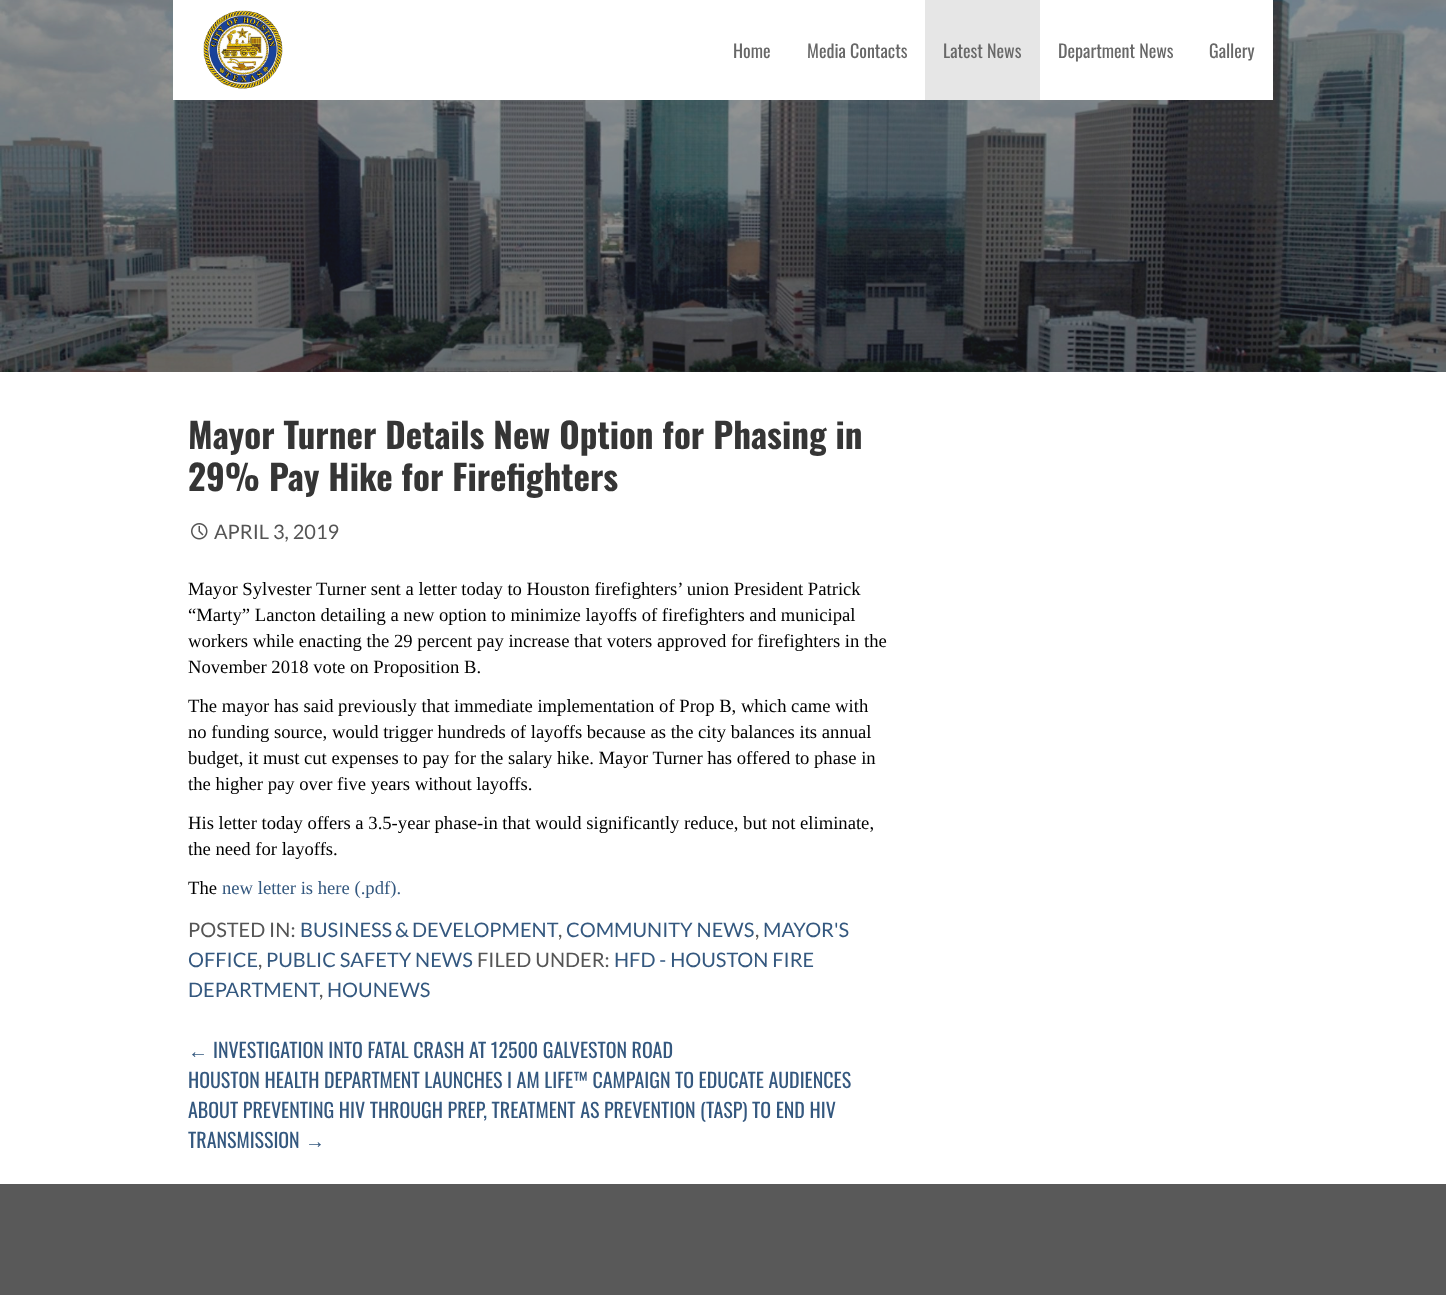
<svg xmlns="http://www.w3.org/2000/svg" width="1446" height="1295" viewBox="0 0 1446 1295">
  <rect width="100%" height="100%" fill="rgb(255,255,255)"/>
  <image x="0" y="0" width="1446" height="372" href="pic1.png"/>
  <rect x="173" y="0" width="1100" height="100" fill="rgb(255,255,255)"/>
  <image x="203" y="10" width="80" height="79" href="pic2.png"/>
  <g font-family="Oswald" font-size="18" fill="rgb(104,104,104)">
    <text x="733" y="58">Home</text>
    <text x="807" y="58">Media Contacts</text>
  </g>
  <rect x="925" y="0" width="115" height="100" fill="rgb(230,230,230)"/>
  <g font-family="Oswald" font-size="18" fill="rgb(104,104,104)">
    <text x="943" y="58">Latest News</text>
    <text x="1058" y="58">Department News</text>
    <text x="1209" y="58">Gallery</text>
  </g>
  <g font-family="Oswald" font-size="35" font-weight="bold" fill="rgb(53,53,53)">
    <text>
      <tspan x="188" y="449">Mayor Turner Details New Option for Phasing in</tspan>
      <tspan x="188" y="491">29% Pay Hike for Firefighters</tspan>
    </text>
  </g>
  <image x="191" y="523" width="17" height="17" href="pic3.png"/>
  <text x="214" y="539" font-family="Lato" font-size="20" fill="rgb(85,85,85)">APRIL 3, 2019</text>
  <g font-family="Liberation Serif" font-size="18.65" fill="rgb(0,0,0)">
    <text>
      <tspan x="188" y="595">Mayor Sylvester Turner sent a letter today to Houston firefighters’ union President Patrick</tspan>
      <tspan x="188" y="621">“Marty” Lancton detailing a new option to minimize layoffs of firefighters and municipal</tspan>
      <tspan x="188" y="647">workers while enacting the 29 percent pay increase that voters approved for firefighters in the</tspan>
      <tspan x="188" y="673">November 2018 vote on Proposition B.</tspan>
    </text>
    <text>
      <tspan x="188" y="712">The mayor has said previously that immediate implementation of Prop B, which came with</tspan>
      <tspan x="188" y="738">no funding source, would trigger hundreds of layoffs because as the city balances its annual</tspan>
      <tspan x="188" y="764">budget, it must cut expenses to pay for the salary hike. Mayor Turner has offered to phase in</tspan>
      <tspan x="188" y="790">the higher pay over five years without layoffs.</tspan>
    </text>
    <text>
      <tspan x="188" y="829">His letter today offers a 3.5-year phase-in that would significantly reduce, but not eliminate,</tspan>
      <tspan x="188" y="855">the need for layoffs.</tspan>
    </text>
    <text x="188" y="894">The</text>
  </g>
  <text x="222" y="894" font-family="Liberation Serif" font-size="18.65" fill="rgb(52,88,127)">new letter is here (.pdf).</text>
  <text x="188" y="937" font-family="Lato" font-size="20" fill="rgb(85,85,85)">POSTED IN:</text>
  <text x="300" y="937" word-spacing="-1" font-family="Lato" font-size="20" fill="rgb(52,88,127)">BUSINESS &amp; DEVELOPMENT</text>
  <text x="558" y="937" font-family="Lato" font-size="20" fill="rgb(85,85,85)">,</text>
  <text x="566" y="937" font-family="Lato" font-size="20" fill="rgb(52,88,127)">COMMUNITY NEWS</text>
  <text x="755" y="937" font-family="Lato" font-size="20" fill="rgb(85,85,85)">,</text>
  <g font-family="Lato" font-size="20" fill="rgb(52,88,127)">
    <text x="763" y="937">MAYOR'S</text>
    <text x="188" y="967">OFFICE</text>
  </g>
  <text x="258" y="967" font-family="Lato" font-size="20" fill="rgb(85,85,85)">,</text>
  <text x="266" y="967" font-family="Lato" font-size="20" fill="rgb(52,88,127)">PUBLIC SAFETY NEWS</text>
  <text x="477" y="967" font-family="Lato" font-size="20" fill="rgb(85,85,85)">FILED UNDER:</text>
  <g font-family="Lato" font-size="20" fill="rgb(52,88,127)">
    <text x="614" y="967">HFD - HOUSTON FIRE</text>
    <text x="188" y="997">DEPARTMENT</text>
    <text x="327" y="997">HOUNEWS</text>
  </g>
  <text x="319" y="997" font-family="Lato" font-size="20" fill="rgb(85,85,85)">,</text>
  <text x="188" y="1058" font-family="Liberation Serif" font-size="20" fill="rgb(52,88,127)">←</text>
  <g font-family="Oswald" font-size="20" fill="rgb(52,88,127)">
    <text x="213" y="1058">INVESTIGATION INTO FATAL CRASH AT 12500 GALVESTON ROAD</text>
    <text>
      <tspan x="188" y="1088">HOUSTON HEALTH DEPARTMENT LAUNCHES I AM LIFE™ CAMPAIGN TO EDUCATE AUDIENCES</tspan>
      <tspan x="188" y="1118">ABOUT PREVENTING HIV THROUGH PREP, TREATMENT AS PREVENTION (TASP) TO END HIV</tspan>
      <tspan x="188" y="1148">TRANSMISSION</tspan>
    </text>
  </g>
  <text x="305" y="1148" font-family="Liberation Serif" font-size="20" fill="rgb(52,88,127)">→</text>
  <rect x="0" y="1184" width="1446" height="111" fill="rgb(89,89,89)"/>
</svg>
